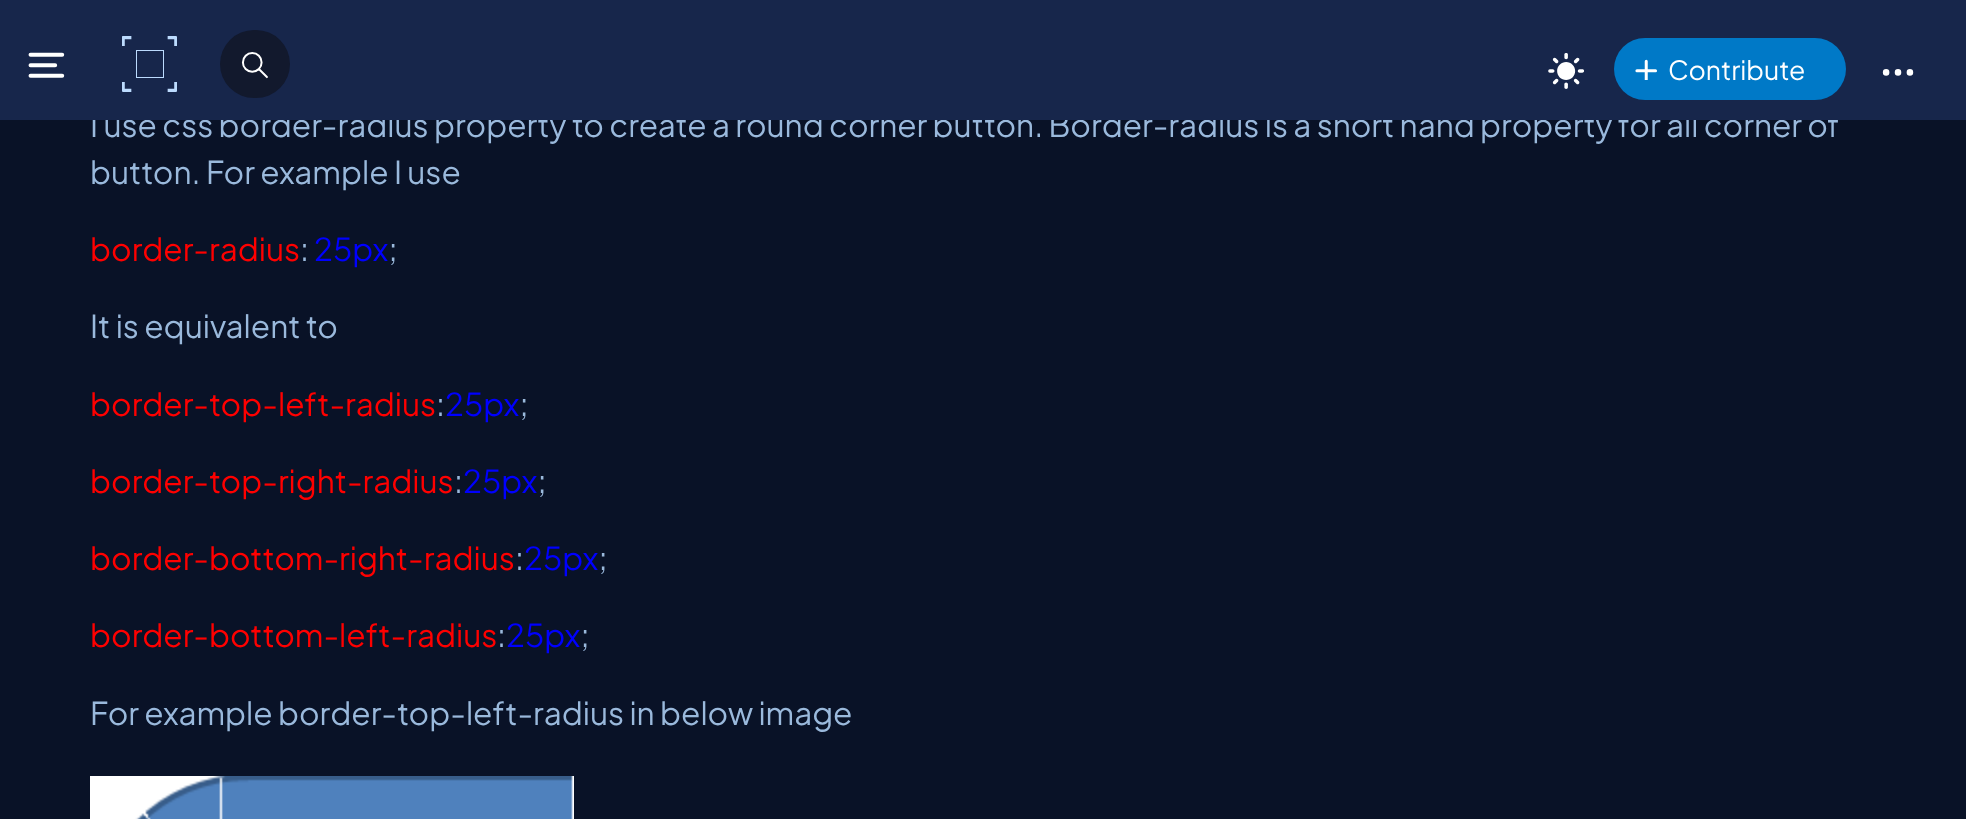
<svg xmlns="http://www.w3.org/2000/svg" width="1966" height="819" viewBox="0 0 1966 819">
  <rect width="100%" height="100%" fill="rgb(9,18,39)"/>
  <text x="90" y="137" font-family="Plus Jakarta Sans" font-size="31.5" fill="rgb(154,185,220)">I use css border-radius property to create a round corner button. Border-radius is a short hand property for all corner of</text>
  <rect x="0" y="0" width="1966" height="120" fill="rgb(23,38,75)"/>
  <image x="122" y="36" width="55" height="56" href="pic1.png"/>
  <rect x="136.5" y="50.5" width="27" height="27" fill="none" stroke="rgb(188,219,254)"/>
  <rect x="220" y="30" width="70" height="68" rx="34" fill="rgb(18,25,45)"/>
  <image x="241" y="52" width="27" height="27" href="pic2.png"/>
  <image x="1548" y="53" width="36" height="36" href="pic3.png"/>
  <rect x="1614" y="38" width="232" height="62" rx="31" fill="rgb(0,121,199)"/>
  <image x="1635" y="59" width="22" height="21" href="pic4.png"/>
  <text x="1668" y="80" font-family="Plus Jakarta Sans" font-size="26.5" fill="rgb(255,255,255)">Contribute</text>
  <image x="1882" y="69" width="32" height="7" href="pic5.png"/>
  <image x="28" y="52" width="37" height="26" href="pic6.png"/>
  <text x="90" y="184" font-family="Plus Jakarta Sans" font-size="31.5" fill="rgb(154,185,220)">button. For example I use</text>
  <text x="90" y="261" font-family="Plus Jakarta Sans" font-size="31.5" fill="rgb(255,0,0)">border-radius</text>
  <text x="300" y="261" font-family="Plus Jakarta Sans" font-size="31.5" fill="rgb(154,185,220)">:</text>
  <text x="314" y="261" font-family="Plus Jakarta Sans" font-size="31.5" fill="rgb(0,0,255)">25px</text>
  <g font-family="Plus Jakarta Sans" font-size="31.5" fill="rgb(154,185,220)">
    <text x="388" y="261">;</text>
    <text x="90" y="338">It is equivalent to</text>
  </g>
  <text x="90" y="416" font-family="Plus Jakarta Sans" font-size="31.5" fill="rgb(255,0,0)">border-top-left-radius</text>
  <text x="436" y="416" font-family="Plus Jakarta Sans" font-size="31.5" fill="rgb(154,185,220)">:</text>
  <text x="445" y="416" font-family="Plus Jakarta Sans" font-size="31.5" fill="rgb(0,0,255)">25px</text>
  <text x="519" y="416" font-family="Plus Jakarta Sans" font-size="31.5" fill="rgb(154,185,220)">;</text>
  <text x="90" y="493" font-family="Plus Jakarta Sans" font-size="31.5" fill="rgb(255,0,0)">border-top-right-radius</text>
  <text x="454" y="493" font-family="Plus Jakarta Sans" font-size="31.5" fill="rgb(154,185,220)">:</text>
  <text x="463" y="493" font-family="Plus Jakarta Sans" font-size="31.5" fill="rgb(0,0,255)">25px</text>
  <text x="537" y="493" font-family="Plus Jakarta Sans" font-size="31.5" fill="rgb(154,185,220)">;</text>
  <text x="90" y="570" font-family="Plus Jakarta Sans" font-size="31.5" fill="rgb(255,0,0)">border-bottom-right-radius</text>
  <text x="515" y="570" font-family="Plus Jakarta Sans" font-size="31.5" fill="rgb(154,185,220)">:</text>
  <text x="524" y="570" font-family="Plus Jakarta Sans" font-size="31.5" fill="rgb(0,0,255)">25px</text>
  <text x="598" y="570" font-family="Plus Jakarta Sans" font-size="31.5" fill="rgb(154,185,220)">;</text>
  <text x="90" y="647" font-family="Plus Jakarta Sans" font-size="31.5" fill="rgb(255,0,0)">border-bottom-left-radius</text>
  <text x="497" y="647" font-family="Plus Jakarta Sans" font-size="31.5" fill="rgb(154,185,220)">:</text>
  <text x="506" y="647" font-family="Plus Jakarta Sans" font-size="31.5" fill="rgb(0,0,255)">25px</text>
  <g font-family="Plus Jakarta Sans" font-size="31.5" fill="rgb(154,185,220)">
    <text x="580" y="647">;</text>
    <text x="90" y="725">For example border-top-left-radius in below image</text>
  </g>
  <image x="90" y="776" width="484" height="43" href="pic7.png"/>
</svg>
